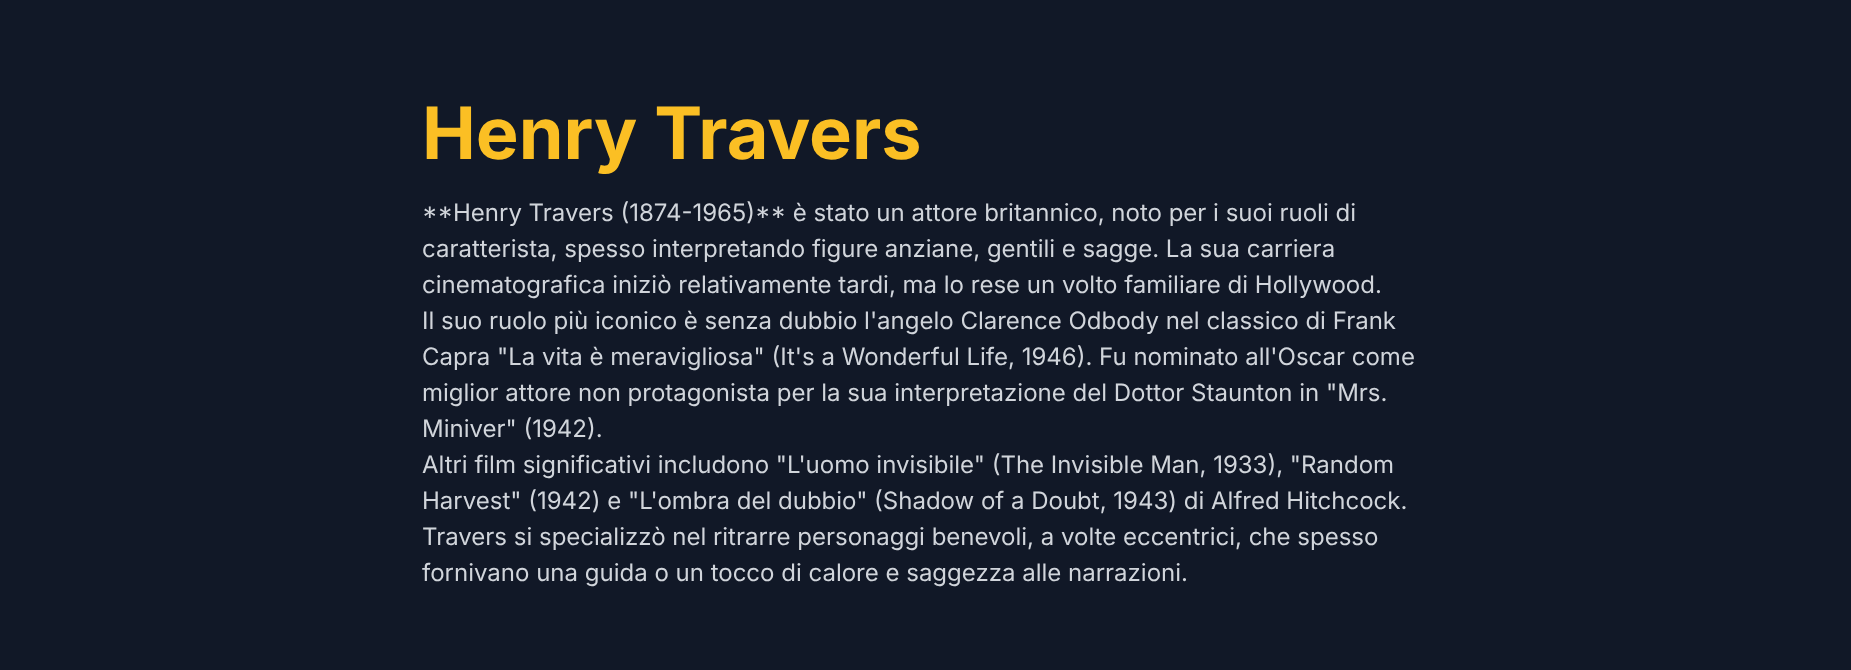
<svg xmlns="http://www.w3.org/2000/svg" width="1851" height="670" viewBox="0 0 1851 670">
  <rect width="100%" height="100%" fill="rgb(17,24,39)"/>
  <text x="422" y="159" font-family="Inter" font-size="72" font-weight="bold" fill="rgb(251,191,36)">Henry Travers</text>
  <g font-family="Inter" font-size="24" fill="rgb(209,213,219)">
    <text>
      <tspan x="422" y="221">**Henry Travers (1874-1965)** è stato un attore britannico, noto per i suoi ruoli di</tspan>
      <tspan x="422" y="257">caratterista, spesso interpretando figure anziane, gentili e sagge. La sua carriera</tspan>
      <tspan x="422" y="293">cinematografica iniziò relativamente tardi, ma lo rese un volto familiare di Hollywood.</tspan>
      <tspan x="422" y="329">Il suo ruolo più iconico è senza dubbio l'angelo Clarence Odbody nel classico di Frank</tspan>
      <tspan x="422" y="365">Capra "La vita è meravigliosa" (It's a Wonderful Life, 1946). Fu nominato all'Oscar come</tspan>
      <tspan x="422" y="401">miglior attore non protagonista per la sua interpretazione del Dottor Staunton in "Mrs.</tspan>
      <tspan x="422" y="437">Miniver" (1942).</tspan>
      <tspan x="422" y="473">Altri film significativi includono "L'uomo invisibile" (The Invisible Man, 1933), "Random</tspan>
      <tspan x="422" y="509">Harvest" (1942) e "L'ombra del dubbio" (Shadow of a Doubt, 1943) di Alfred Hitchcock.</tspan>
      <tspan x="422" y="545">Travers si specializzò nel ritrarre personaggi benevoli, a volte eccentrici, che spesso</tspan>
      <tspan x="422" y="581">fornivano una guida o un tocco di calore e saggezza alle narrazioni.</tspan>
    </text>
  </g>
</svg>
